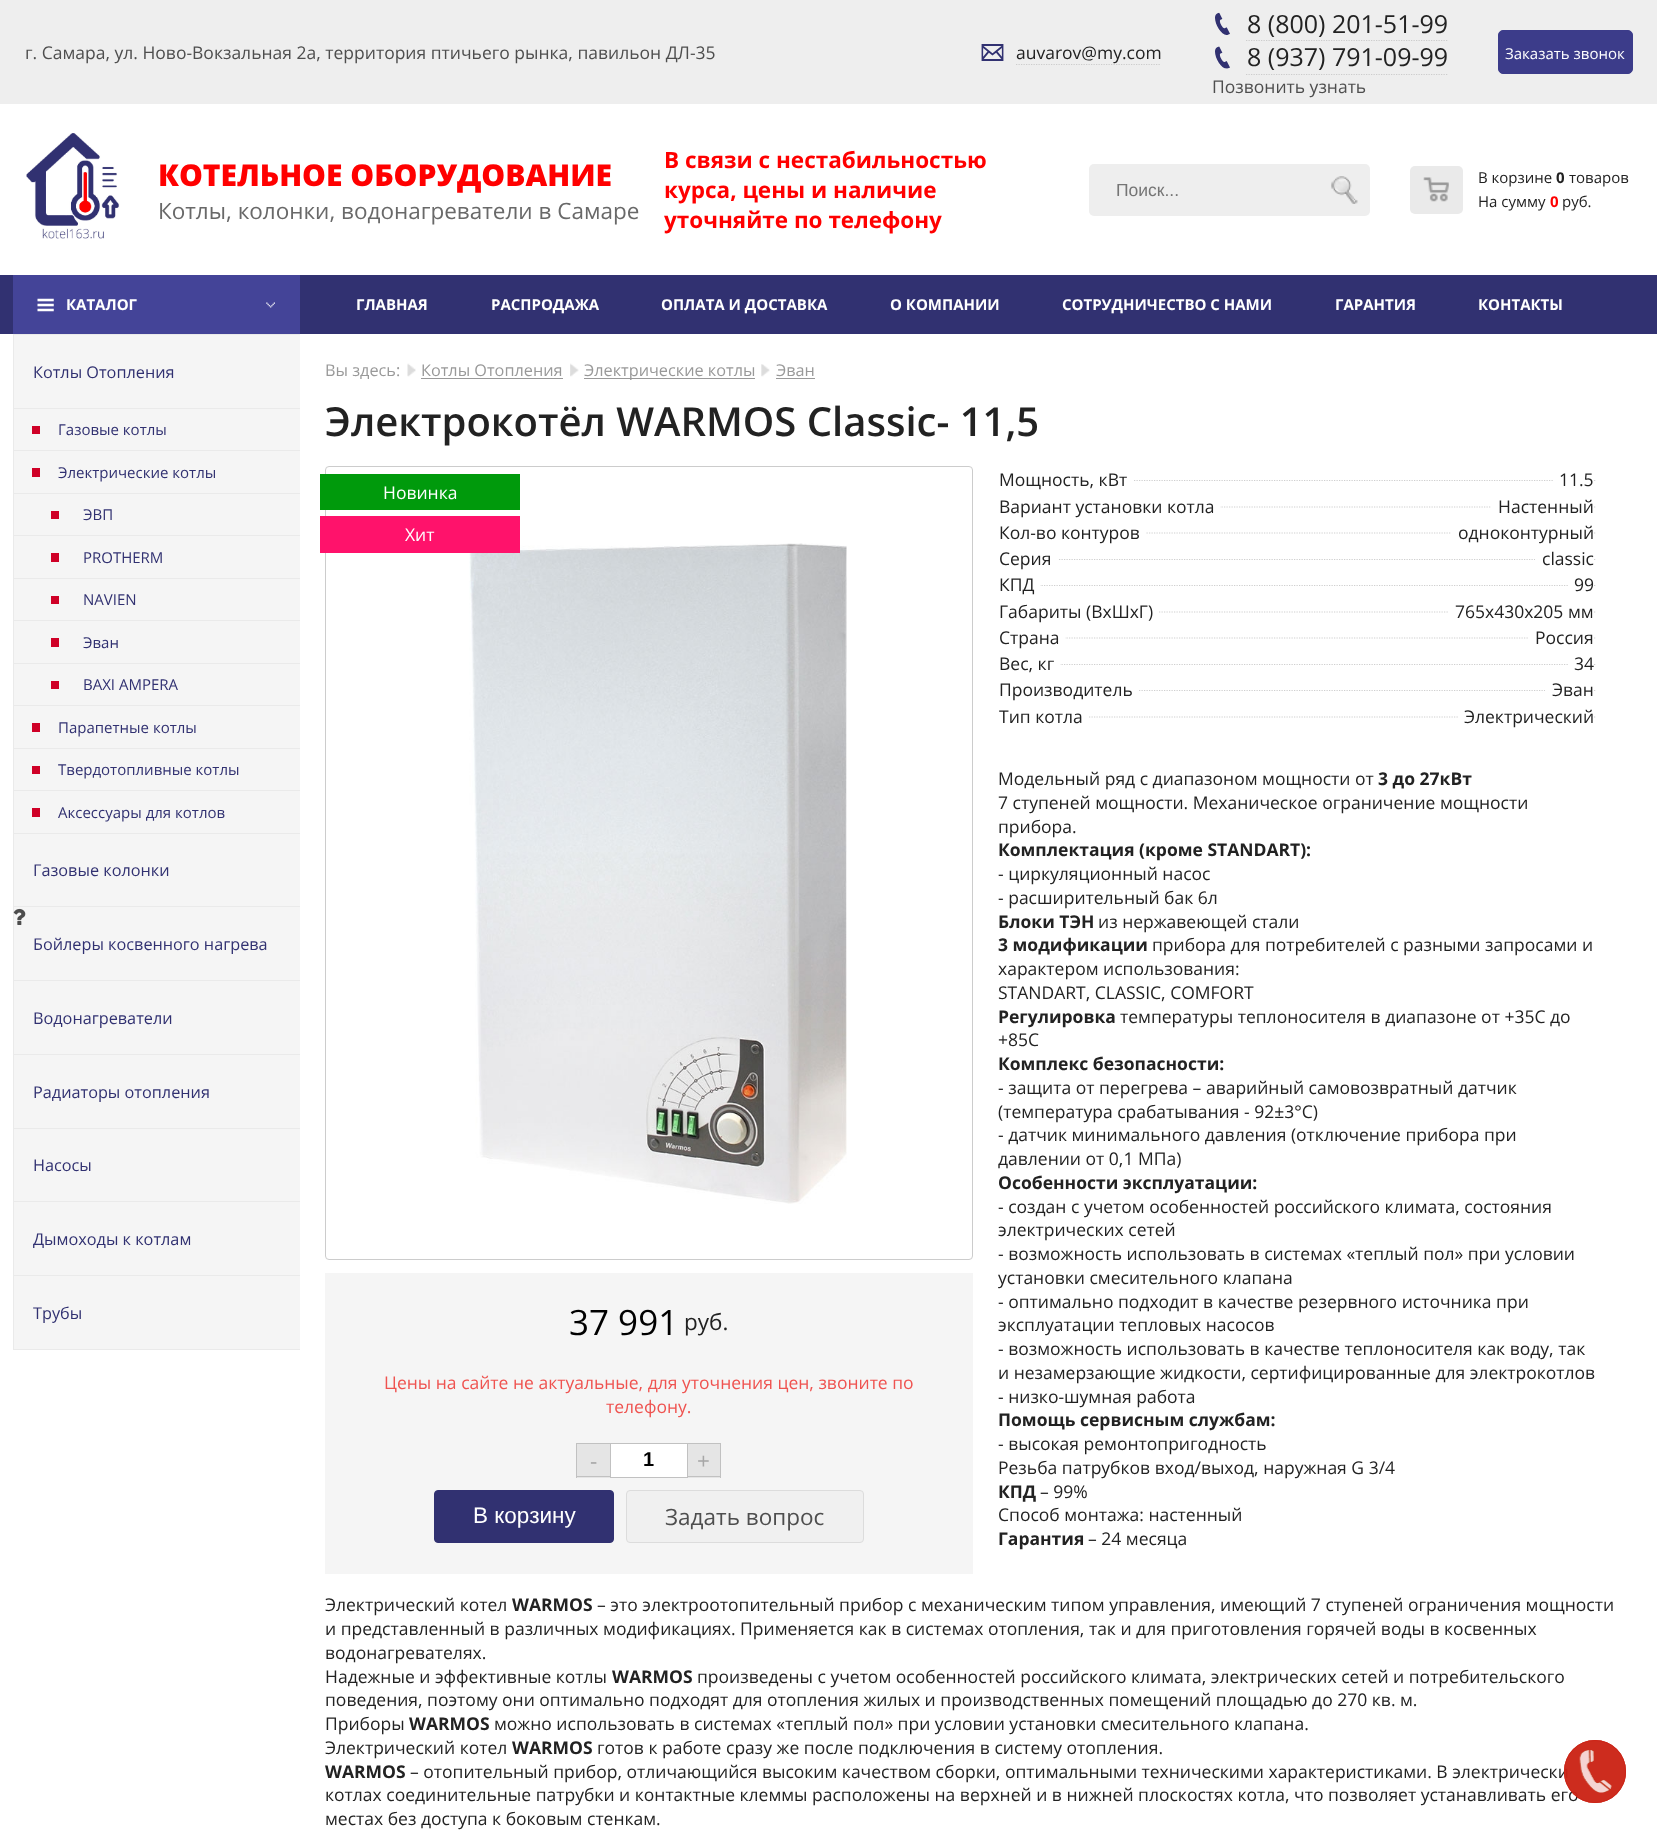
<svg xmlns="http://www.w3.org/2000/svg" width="1657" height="1833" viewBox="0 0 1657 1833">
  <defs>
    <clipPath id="clip1"><rect x="13" y="334" width="287" height="1016"/></clipPath>
  </defs>
  <rect width="100%" height="100%" fill="rgb(255,255,255)"/>
  <rect x="0" y="0" width="1657" height="104" fill="rgb(238,238,238)"/>
  <text x="25" y="59" font-family="Open Sans" font-size="17.5" fill="rgb(78,78,78)">г. Самара, ул. Ново-Вокзальная 2а, территория птичьего рынка, павильон ДЛ-35</text>
  <image x="981" y="44" width="23" height="17" href="pic1.png"/>
  <path d="M1016 64.5H1161" fill="none" stroke="rgb(204,204,204)" stroke-width="1.2" stroke-dasharray="1.25 1.25"/>
  <text x="1016" y="59" font-family="Open Sans" font-size="17.5" fill="rgb(34,34,34)">auvarov@my.com</text>
  <image x="1215" y="12" width="15" height="23" href="pic2.png"/>
  <text x="1247" y="33" font-family="Open Sans" font-size="25" fill="rgb(34,34,34)">8 (800) 201-51-99</text>
  <path d="M1246 40.5H1447.5" fill="none" stroke="rgb(204,204,204)" stroke-width="1.2" stroke-dasharray="1.25 1.25"/>
  <image x="1215" y="46" width="15" height="23" href="pic3.png"/>
  <text x="1247" y="66" font-family="Open Sans" font-size="25" fill="rgb(34,34,34)">8 (937) 791-09-99</text>
  <path d="M1246 74.5H1447.5" fill="none" stroke="rgb(204,204,204)" stroke-width="1.2" stroke-dasharray="1.25 1.25"/>
  <text x="1212" y="93" font-family="Open Sans" font-size="17.5" fill="rgb(78,78,78)">Позвонить узнать</text>
  <rect x="1498.5" y="30.5" width="134" height="43" rx="4.5" fill="rgb(60,60,138)" stroke="rgb(60,60,138)"/>
  <text x="1505" y="59" font-family="Open Sans" font-size="15" fill="rgb(255,255,255)">Заказать звонок</text>
  <g font-family="Open Sans" font-size="17.5" fill="rgb(34,34,34)">
    <text x="410" y="1778">– отопительный прибор, отличающийся высоким качеством сборки, оптимальными техническими характеристиками. В электрически</text>
    <text x="325" y="1801">котлах соединительные патрубки и контактные клеммы расположены на верхней и в нижней плоскостях котла, что позволяет устанавливать его</text>
  </g>
  <rect x="1564.5" y="1740.5" width="61" height="62" rx="30.5" fill="none" stroke="rgba(202,35,21,0.8)"/>
  <rect x="1564" y="1740" width="62" height="63" rx="31" fill="rgba(202,35,21,0.8)"/>
  <rect x="1564" y="1740" width="62" height="63" rx="31" fill="rgba(202,35,21,0.8)"/>
  <image x="1579" y="1750" width="33" height="43" href="pic4.png"/>
  <image x="26" y="133" width="94" height="106" href="pic5.png"/>
  <text x="158" y="186" font-family="Open Sans" font-size="30" font-weight="800" fill="rgb(255,0,0)">КОТЕЛЬНОЕ ОБОРУДОВАНИЕ</text>
  <text x="158" y="219" font-family="Open Sans" font-size="22.5" fill="rgb(105,105,105)">Котлы, колонки, водонагреватели в Самаре</text>
  <g font-family="Open Sans" font-size="22.5" font-weight="bold" fill="rgb(255,0,0)">
    <text>
      <tspan x="664" y="168">В связи с нестабильностью</tspan>
      <tspan x="664" y="198">курса, цены и наличие</tspan>
      <tspan x="664" y="228">уточняйте по телефону</tspan>
    </text>
  </g>
  <rect x="1089" y="164" width="281" height="52" rx="5" fill="rgb(238,238,238)"/>
  <text x="1116" y="196" font-family="Liberation Sans" font-size="17.5" fill="rgb(117,117,117)">Поиск...</text>
  <image x="1331" y="176" width="27" height="28" href="pic6.png"/>
  <rect x="1410" y="166" width="53" height="48" rx="5" fill="rgb(234,234,234)"/>
  <image x="1423" y="177" width="26" height="25" href="pic7.png"/>
  <text x="1478" y="183" font-family="Open Sans" font-size="15" fill="rgb(34,34,34)">В корзине</text>
  <text x="1556" y="183" font-family="Open Sans" font-size="15" font-weight="bold" fill="rgb(34,34,34)">0</text>
  <g font-family="Open Sans" font-size="15" fill="rgb(34,34,34)">
    <text x="1569" y="183">товаров</text>
    <text x="1478" y="207">На сумму</text>
  </g>
  <text x="1550" y="207" font-family="Open Sans" font-size="15" font-weight="bold" fill="rgb(255,0,0)">0</text>
  <text x="1562" y="207" font-family="Open Sans" font-size="15" fill="rgb(34,34,34)">руб.</text>
  <rect x="0" y="275" width="1657" height="59" fill="rgb(49,49,113)"/>
  <rect x="13" y="275" width="287" height="59" fill="rgb(68,68,152)"/>
  <image x="37" y="298" width="238" height="14" href="pic8.png"/>
  <g font-family="Open Sans" font-size="15" font-weight="bold" fill="rgb(255,255,255)">
    <text x="66" y="310">КАТАЛОГ</text>
    <text x="356" y="310">ГЛАВНАЯ</text>
    <text x="491" y="310">РАСПРОДАЖА</text>
    <text x="661" y="310">ОПЛАТА И ДОСТАВКА</text>
    <text x="890" y="310">О КОМПАНИИ</text>
    <text x="1062" y="310">СОТРУДНИЧЕСТВО С НАМИ</text>
    <text x="1335" y="310">ГАРАНТИЯ</text>
    <text x="1478" y="310">КОНТАКТЫ</text>
  </g>
  <rect x="14" y="335" width="286" height="73" fill="rgb(245,245,245)"/>
  <rect x="13" y="334" width="287" height="1" fill="rgb(234,234,234)"/>
  <rect x="13" y="334" width="1" height="74" fill="rgb(234,234,234)"/>
  <text x="33" y="378" font-family="Open Sans" font-size="16.25" fill="rgb(49,49,113)">Котлы Отопления</text>
  <rect x="14" y="409" width="286" height="41" fill="rgb(245,245,245)"/>
  <rect x="32" y="426" width="8" height="8" fill="rgb(207,0,39)"/>
  <rect x="13" y="408" width="287" height="1" fill="rgb(234,234,234)"/>
  <rect x="13" y="408" width="1" height="42" fill="rgb(234,234,234)"/>
  <text x="58" y="435" font-family="Open Sans" font-size="15" fill="rgb(49,49,113)">Газовые котлы</text>
  <rect x="14" y="451" width="286" height="42" fill="rgb(245,245,245)"/>
  <rect x="32" y="468" width="8" height="9" fill="rgb(207,0,39)"/>
  <rect x="13" y="450" width="287" height="1" fill="rgb(234,234,234)"/>
  <rect x="13" y="450" width="1" height="43" fill="rgb(234,234,234)"/>
  <text x="58" y="478" font-family="Open Sans" font-size="15" fill="rgb(49,49,113)">Электрические котлы</text>
  <rect x="14" y="494" width="286" height="41" fill="rgb(245,245,245)"/>
  <rect x="51" y="511" width="8" height="8" fill="rgb(207,0,39)"/>
  <rect x="13" y="493" width="287" height="1" fill="rgb(234,234,234)"/>
  <rect x="13" y="493" width="1" height="42" fill="rgb(234,234,234)"/>
  <text x="83" y="520" font-family="Open Sans" font-size="15" fill="rgb(49,49,113)">ЭВП</text>
  <rect x="14" y="536" width="286" height="42" fill="rgb(245,245,245)"/>
  <rect x="51" y="553" width="8" height="9" fill="rgb(207,0,39)"/>
  <rect x="13" y="535" width="287" height="1" fill="rgb(234,234,234)"/>
  <rect x="13" y="535" width="1" height="43" fill="rgb(234,234,234)"/>
  <text x="83" y="563" font-family="Open Sans" font-size="15" fill="rgb(49,49,113)">PROTHERM</text>
  <rect x="14" y="579" width="286" height="41" fill="rgb(245,245,245)"/>
  <rect x="51" y="596" width="8" height="8" fill="rgb(207,0,39)"/>
  <rect x="13" y="578" width="287" height="1" fill="rgb(234,234,234)"/>
  <rect x="13" y="578" width="1" height="42" fill="rgb(234,234,234)"/>
  <text x="83" y="605" font-family="Open Sans" font-size="15" fill="rgb(49,49,113)">NAVIEN</text>
  <rect x="14" y="621" width="286" height="42" fill="rgb(245,245,245)"/>
  <rect x="51" y="638" width="8" height="9" fill="rgb(207,0,39)"/>
  <rect x="13" y="620" width="287" height="1" fill="rgb(234,234,234)"/>
  <rect x="13" y="620" width="1" height="43" fill="rgb(234,234,234)"/>
  <text x="83" y="648" font-family="Open Sans" font-size="15" fill="rgb(49,49,113)">Эван</text>
  <rect x="14" y="664" width="286" height="41" fill="rgb(245,245,245)"/>
  <rect x="51" y="681" width="8" height="8" fill="rgb(207,0,39)"/>
  <rect x="13" y="663" width="287" height="1" fill="rgb(234,234,234)"/>
  <rect x="13" y="663" width="1" height="42" fill="rgb(234,234,234)"/>
  <text x="83" y="690" font-family="Open Sans" font-size="15" fill="rgb(49,49,113)">BAXI AMPERA</text>
  <rect x="14" y="706" width="286" height="42" fill="rgb(245,245,245)"/>
  <rect x="32" y="723" width="8" height="9" fill="rgb(207,0,39)"/>
  <rect x="13" y="705" width="287" height="1" fill="rgb(234,234,234)"/>
  <rect x="13" y="705" width="1" height="43" fill="rgb(234,234,234)"/>
  <text x="58" y="733" font-family="Open Sans" font-size="15" fill="rgb(49,49,113)">Парапетные котлы</text>
  <rect x="14" y="749" width="286" height="41" fill="rgb(245,245,245)"/>
  <rect x="32" y="766" width="8" height="8" fill="rgb(207,0,39)"/>
  <rect x="13" y="748" width="287" height="1" fill="rgb(234,234,234)"/>
  <rect x="13" y="748" width="1" height="42" fill="rgb(234,234,234)"/>
  <text x="58" y="775" font-family="Open Sans" font-size="15" fill="rgb(49,49,113)">Твердотопливные котлы</text>
  <rect x="14" y="791" width="286" height="42" fill="rgb(245,245,245)"/>
  <rect x="32" y="808" width="8" height="9" fill="rgb(207,0,39)"/>
  <rect x="13" y="790" width="287" height="1" fill="rgb(234,234,234)"/>
  <rect x="13" y="790" width="1" height="43" fill="rgb(234,234,234)"/>
  <text x="58" y="818" font-family="Open Sans" font-size="15" fill="rgb(49,49,113)">Аксессуары для котлов</text>
  <rect x="14" y="834" width="286" height="72" fill="rgb(245,245,245)"/>
  <rect x="13" y="833" width="287" height="1" fill="rgb(234,234,234)"/>
  <rect x="13" y="833" width="1" height="73" fill="rgb(234,234,234)"/>
  <text x="33" y="876" font-family="Open Sans" font-size="16.25" fill="rgb(49,49,113)">Газовые колонки</text>
  <rect x="14" y="907" width="286" height="73" fill="rgb(245,245,245)"/>
  <rect x="13" y="906" width="287" height="1" fill="rgb(234,234,234)"/>
  <rect x="13" y="906" width="1" height="74" fill="rgb(234,234,234)"/>
  <text x="33" y="950" font-family="Open Sans" font-size="16.25" fill="rgb(49,49,113)">Бойлеры косвенного нагрева</text>
  <rect x="14" y="981" width="286" height="73" fill="rgb(245,245,245)"/>
  <rect x="13" y="980" width="287" height="1" fill="rgb(234,234,234)"/>
  <rect x="13" y="980" width="1" height="74" fill="rgb(234,234,234)"/>
  <text x="33" y="1024" font-family="Open Sans" font-size="16.25" fill="rgb(49,49,113)">Водонагреватели</text>
  <rect x="14" y="1055" width="286" height="73" fill="rgb(245,245,245)"/>
  <rect x="13" y="1054" width="287" height="1" fill="rgb(234,234,234)"/>
  <rect x="13" y="1054" width="1" height="74" fill="rgb(234,234,234)"/>
  <text x="33" y="1098" font-family="Open Sans" font-size="16.25" fill="rgb(49,49,113)">Радиаторы отопления</text>
  <rect x="14" y="1129" width="286" height="72" fill="rgb(245,245,245)"/>
  <rect x="13" y="1128" width="287" height="1" fill="rgb(234,234,234)"/>
  <rect x="13" y="1128" width="1" height="73" fill="rgb(234,234,234)"/>
  <text x="33" y="1171" font-family="Open Sans" font-size="16.25" fill="rgb(49,49,113)">Насосы</text>
  <rect x="14" y="1202" width="286" height="73" fill="rgb(245,245,245)"/>
  <rect x="13" y="1201" width="287" height="1" fill="rgb(234,234,234)"/>
  <rect x="13" y="1201" width="1" height="74" fill="rgb(234,234,234)"/>
  <text x="33" y="1245" font-family="Open Sans" font-size="16.25" fill="rgb(49,49,113)">Дымоходы к котлам</text>
  <rect x="14" y="1276" width="286" height="73" fill="rgb(245,245,245)"/>
  <rect x="325" y="1273" width="648" height="301" fill="rgb(245,245,245)"/>
  <g clip-path="url(#clip1)">
    <rect x="13.5" y="1275.5" width="326" height="74" fill="none" stroke="rgb(234,234,234)"/>
  </g>
  <text x="33" y="1319" font-family="Open Sans" font-size="16.25" fill="rgb(49,49,113)">Трубы</text>
  <text x="325" y="376" font-family="Open Sans" font-size="16.25" fill="rgb(153,153,153)">Вы здесь:</text>
  <image x="407" y="363" width="9" height="14" href="pic9.png"/>
  <text x="421" y="376" font-family="Open Sans" font-size="16.25" fill="rgb(153,153,153)">Котлы Отопления</text>
  <rect x="421" y="378" width="142" height="1" fill="rgb(153,153,153)"/>
  <image x="570" y="363" width="9" height="14" href="pic10.png"/>
  <rect x="584" y="378" width="171" height="1" fill="rgb(153,153,153)"/>
  <text x="584" y="376" font-family="Open Sans" font-size="16.25" fill="rgb(153,153,153)">Электрические котлы</text>
  <image x="761" y="364" width="9" height="13" href="pic11.png"/>
  <text x="776" y="376" font-family="Open Sans" font-size="16.25" fill="rgb(153,153,153)">Эван</text>
  <rect x="776" y="378" width="39" height="1" fill="rgb(153,153,153)"/>
  <text x="325" y="436" font-family="Open Sans" font-size="40" font-weight="600" fill="rgb(34,34,34)">Электрокотёл WARMOS Classic- 11,5</text>
  <rect x="325.5" y="466.5" width="647" height="793" rx="3.5" fill="none" stroke="rgb(204,204,204)"/>
  <rect x="320" y="474" width="200" height="36" fill="rgb(0,154,12)"/>
  <text x="383" y="499" font-family="Open Sans" font-size="17.5" fill="rgb(255,255,255)">Новинка</text>
  <image x="469" y="543" width="378" height="661" href="pic12.png"/>
  <rect x="320" y="516" width="200" height="37" fill="rgb(255,18,107)"/>
  <text x="405" y="541" font-family="Open Sans" font-size="17.5" fill="rgb(255,255,255)">Хит</text>
  <text x="569" y="1335" font-family="Open Sans" font-size="35" fill="rgb(0,0,0)">37 991</text>
  <text x="684" y="1330" font-family="Open Sans" font-size="22.5" fill="rgb(34,34,34)">руб.</text>
  <g font-family="Open Sans" font-size="17.5" fill="rgb(239,83,80)">
    <text x="384" y="1389">Цены на сайте не актуальные, для уточнения цен, звоните по</text>
    <text x="606" y="1413">телефону.</text>
  </g>
  <rect x="577" y="1444" width="33" height="34" fill="rgb(229,229,229)"/>
  <rect x="576" y="1443" width="34" height="1" fill="rgb(193,193,193)"/>
  <rect x="576" y="1476" width="34" height="1" fill="rgb(193,193,193)"/>
  <rect x="576" y="1443" width="1" height="35" fill="rgb(193,193,193)"/>
  <text x="590" y="1469" font-family="Open Sans" font-size="22.5" fill="rgb(167,167,167)">-</text>
  <rect x="610.5" y="1443.5" width="77" height="34" fill="rgb(255,255,255)" stroke="rgb(193,193,193)"/>
  <text x="643" y="1466" font-family="Liberation Sans" font-size="20" font-weight="bold" fill="rgb(0,0,0)">1</text>
  <rect x="688" y="1444" width="32" height="34" fill="rgb(229,229,229)"/>
  <rect x="688" y="1443" width="33" height="1" fill="rgb(193,193,193)"/>
  <rect x="720" y="1443" width="1" height="35" fill="rgb(193,193,193)"/>
  <rect x="688" y="1476" width="33" height="1" fill="rgb(193,193,193)"/>
  <text x="697" y="1469" font-family="Open Sans" font-size="22.5" fill="rgb(167,167,167)">+</text>
  <rect x="434.5" y="1490.5" width="179" height="52" rx="3.5" fill="rgb(49,49,113)" stroke="rgb(49,49,113)"/>
  <text x="473" y="1523" font-family="Liberation Sans" font-size="22.5" fill="rgb(255,255,255)">В корзину</text>
  <rect x="626.5" y="1490.5" width="237" height="52" rx="3.5" fill="rgb(240,240,240)" stroke="rgb(220,220,220)"/>
  <image x="13" y="908" width="13" height="17" href="pic13.png"/>
  <text x="665" y="1525" font-family="Open Sans" font-size="22.5" fill="rgb(78,78,78)">Задать вопрос</text>
  <path d="M999 480.5H1359" fill="none" stroke="rgb(207,207,207)" stroke-width="1.2" stroke-dasharray="1.25 1.25"/>
  <rect x="999" y="479" width="134" height="3" fill="rgb(255,255,255)"/>
  <text x="999" y="486" font-family="Open Sans" font-size="17.5" fill="rgb(34,34,34)">Мощность, кВт</text>
  <path d="M1359 480.5H1596" fill="none" stroke="rgb(207,207,207)" stroke-width="1.2" stroke-dasharray="1.25 1.25"/>
  <rect x="1554" y="479" width="39" height="3" fill="rgb(255,255,255)"/>
  <text x="1559" y="486" font-family="Open Sans" font-size="17.5" fill="rgb(34,34,34)">11.5</text>
  <path d="M999 507H1359" fill="none" stroke="rgb(207,207,207)" stroke-width="1.2" stroke-dasharray="1.25 1.25"/>
  <rect x="999" y="506" width="221" height="2" fill="rgb(255,255,255)"/>
  <text x="999" y="513" font-family="Open Sans" font-size="17.5" fill="rgb(34,34,34)">Вариант установки котла</text>
  <path d="M1359 507H1596" fill="none" stroke="rgb(207,207,207)" stroke-width="1.2" stroke-dasharray="1.25 1.25"/>
  <rect x="1491" y="506" width="102" height="2" fill="rgb(255,255,255)"/>
  <text x="1498" y="513" font-family="Open Sans" font-size="17.5" fill="rgb(34,34,34)">Настенный</text>
  <path d="M999 533H1359" fill="none" stroke="rgb(207,207,207)" stroke-width="1.2" stroke-dasharray="1.25 1.25"/>
  <rect x="999" y="532" width="147" height="2" fill="rgb(255,255,255)"/>
  <text x="999" y="539" font-family="Open Sans" font-size="17.5" fill="rgb(34,34,34)">Кол-во контуров</text>
  <path d="M1359 533H1596" fill="none" stroke="rgb(207,207,207)" stroke-width="1.2" stroke-dasharray="1.25 1.25"/>
  <rect x="1451" y="532" width="142" height="2" fill="rgb(255,255,255)"/>
  <text x="1458" y="539" font-family="Open Sans" font-size="17.5" fill="rgb(34,34,34)">одноконтурный</text>
  <path d="M999 559.5H1359" fill="none" stroke="rgb(207,207,207)" stroke-width="1.2" stroke-dasharray="1.25 1.25"/>
  <rect x="999" y="558" width="59" height="3" fill="rgb(255,255,255)"/>
  <text x="999" y="565" font-family="Open Sans" font-size="17.5" fill="rgb(34,34,34)">Серия</text>
  <path d="M1359 559.5H1596" fill="none" stroke="rgb(207,207,207)" stroke-width="1.2" stroke-dasharray="1.25 1.25"/>
  <rect x="1535" y="558" width="58" height="3" fill="rgb(255,255,255)"/>
  <text x="1542" y="565" font-family="Open Sans" font-size="17.5" fill="rgb(34,34,34)">classic</text>
  <path d="M999 585.5H1359" fill="none" stroke="rgb(207,207,207)" stroke-width="1.2" stroke-dasharray="1.25 1.25"/>
  <rect x="999" y="584" width="41" height="3" fill="rgb(255,255,255)"/>
  <text x="999" y="591" font-family="Open Sans" font-size="17.5" fill="rgb(34,34,34)">КПД</text>
  <path d="M1359 585.5H1596" fill="none" stroke="rgb(207,207,207)" stroke-width="1.2" stroke-dasharray="1.25 1.25"/>
  <rect x="1569" y="584" width="24" height="3" fill="rgb(255,255,255)"/>
  <text x="1574" y="591" font-family="Open Sans" font-size="17.5" fill="rgb(34,34,34)">99</text>
  <path d="M999 612H1359" fill="none" stroke="rgb(207,207,207)" stroke-width="1.2" stroke-dasharray="1.25 1.25"/>
  <rect x="999" y="611" width="159" height="2" fill="rgb(255,255,255)"/>
  <text x="999" y="618" font-family="Open Sans" font-size="17.5" fill="rgb(34,34,34)">Габариты (ВхШхГ)</text>
  <path d="M1359 612H1596" fill="none" stroke="rgb(207,207,207)" stroke-width="1.2" stroke-dasharray="1.25 1.25"/>
  <rect x="1449" y="611" width="144" height="2" fill="rgb(255,255,255)"/>
  <text x="1455" y="618" font-family="Open Sans" font-size="17.5" fill="rgb(34,34,34)">765x430x205 мм</text>
  <path d="M999 638H1359" fill="none" stroke="rgb(207,207,207)" stroke-width="1.2" stroke-dasharray="1.25 1.25"/>
  <rect x="999" y="637" width="66" height="2" fill="rgb(255,255,255)"/>
  <text x="999" y="644" font-family="Open Sans" font-size="17.5" fill="rgb(34,34,34)">Страна</text>
  <path d="M1359 638H1596" fill="none" stroke="rgb(207,207,207)" stroke-width="1.2" stroke-dasharray="1.25 1.25"/>
  <rect x="1529" y="637" width="64" height="2" fill="rgb(255,255,255)"/>
  <text x="1535" y="644" font-family="Open Sans" font-size="17.5" fill="rgb(34,34,34)">Россия</text>
  <path d="M999 664.5H1359" fill="none" stroke="rgb(207,207,207)" stroke-width="1.2" stroke-dasharray="1.25 1.25"/>
  <rect x="999" y="663" width="61" height="3" fill="rgb(255,255,255)"/>
  <text x="999" y="670" font-family="Open Sans" font-size="17.5" fill="rgb(34,34,34)">Вес, кг</text>
  <path d="M1359 664.5H1596" fill="none" stroke="rgb(207,207,207)" stroke-width="1.2" stroke-dasharray="1.25 1.25"/>
  <rect x="1569" y="663" width="24" height="3" fill="rgb(255,255,255)"/>
  <text x="1574" y="670" font-family="Open Sans" font-size="17.5" fill="rgb(34,34,34)">34</text>
  <path d="M999 690.5H1359" fill="none" stroke="rgb(207,207,207)" stroke-width="1.2" stroke-dasharray="1.25 1.25"/>
  <rect x="999" y="689" width="139" height="3" fill="rgb(255,255,255)"/>
  <text x="999" y="696" font-family="Open Sans" font-size="17.5" fill="rgb(34,34,34)">Производитель</text>
  <path d="M1359 690.5H1596" fill="none" stroke="rgb(207,207,207)" stroke-width="1.2" stroke-dasharray="1.25 1.25"/>
  <rect x="1545" y="689" width="48" height="3" fill="rgb(255,255,255)"/>
  <text x="1552" y="696" font-family="Open Sans" font-size="17.5" fill="rgb(34,34,34)">Эван</text>
  <path d="M999 717H1359" fill="none" stroke="rgb(207,207,207)" stroke-width="1.2" stroke-dasharray="1.25 1.25"/>
  <rect x="999" y="716" width="89" height="2" fill="rgb(255,255,255)"/>
  <text x="999" y="723" font-family="Open Sans" font-size="17.5" fill="rgb(34,34,34)">Тип котла</text>
  <path d="M1359 717H1596" fill="none" stroke="rgb(207,207,207)" stroke-width="1.2" stroke-dasharray="1.25 1.25"/>
  <rect x="1459" y="716" width="134" height="2" fill="rgb(255,255,255)"/>
  <g font-family="Open Sans" font-size="17.5" fill="rgb(34,34,34)">
    <text x="1464" y="723">Электрический</text>
    <text x="998" y="785">Модельный ряд с диапазоном мощности от</text>
  </g>
  <text x="1378" y="785" font-family="Open Sans" font-size="17.5" font-weight="bold" fill="rgb(34,34,34)">3 до 27кВт</text>
  <g font-family="Open Sans" font-size="17.5" fill="rgb(34,34,34)">
    <text>
      <tspan x="998" y="809">7 ступеней мощности. Механическое ограничение мощности</tspan>
      <tspan x="998" y="833">прибора.</tspan>
    </text>
  </g>
  <text x="998" y="856" font-family="Open Sans" font-size="17.5" font-weight="bold" fill="rgb(34,34,34)">Комплектация (кроме STANDART):</text>
  <g font-family="Open Sans" font-size="17.5" fill="rgb(34,34,34)">
    <text>
      <tspan x="998" y="880">- циркуляционный насос</tspan>
      <tspan x="998" y="904">- расширительный бак 6л</tspan>
    </text>
  </g>
  <text x="998" y="928" font-family="Open Sans" font-size="17.5" font-weight="bold" fill="rgb(34,34,34)">Блоки ТЭН</text>
  <text x="1098" y="928" font-family="Open Sans" font-size="17.5" fill="rgb(34,34,34)">из нержавеющей стали</text>
  <text x="998" y="951" font-family="Open Sans" font-size="17.5" font-weight="bold" fill="rgb(34,34,34)">3 модификации</text>
  <g font-family="Open Sans" font-size="17.5" fill="rgb(34,34,34)">
    <text x="1152" y="951">прибора для потребителей с разными запросами и</text>
    <text>
      <tspan x="998" y="975">характером использования:</tspan>
      <tspan x="998" y="999">STANDART, CLASSIC, COMFORT</tspan>
    </text>
  </g>
  <text x="998" y="1023" font-family="Open Sans" font-size="17.5" font-weight="bold" fill="rgb(34,34,34)">Регулировка</text>
  <g font-family="Open Sans" font-size="17.5" fill="rgb(34,34,34)">
    <text x="1120" y="1023">температуры теплоносителя в диапазоне от +35С до</text>
    <text x="998" y="1046">+85С</text>
  </g>
  <text x="998" y="1070" font-family="Open Sans" font-size="17.5" font-weight="bold" fill="rgb(34,34,34)">Комплекс безопасности:</text>
  <g font-family="Open Sans" font-size="17.5" fill="rgb(34,34,34)">
    <text>
      <tspan x="998" y="1094">- защита от перегрева – аварийный самовозвратный датчик</tspan>
      <tspan x="998" y="1118">(температура срабатывания - 92±3°C)</tspan>
      <tspan x="998" y="1141">- датчик минимального давления (отключение прибора при</tspan>
      <tspan x="998" y="1165">давлении от 0,1 МПа)</tspan>
    </text>
  </g>
  <text x="998" y="1189" font-family="Open Sans" font-size="17.5" font-weight="bold" fill="rgb(34,34,34)">Особенности эксплуатации:</text>
  <g font-family="Open Sans" font-size="17.5" fill="rgb(34,34,34)">
    <text>
      <tspan x="998" y="1213">- создан с учетом особенностей российского климата, состояния</tspan>
      <tspan x="998" y="1236">электрических сетей</tspan>
      <tspan x="998" y="1260">- возможность использовать в системах «теплый пол» при условии</tspan>
      <tspan x="998" y="1284">установки смесительного клапана</tspan>
      <tspan x="998" y="1308">- оптимально подходит в качестве резервного источника при</tspan>
      <tspan x="998" y="1331">эксплуатации тепловых насосов</tspan>
      <tspan x="998" y="1355">- возможность использовать в качестве теплоносителя как воду, так</tspan>
      <tspan x="998" y="1379">и незамерзающие жидкости, сертифицированные для электрокотлов</tspan>
      <tspan x="998" y="1403">- низко-шумная работа</tspan>
    </text>
  </g>
  <text x="998" y="1426" font-family="Open Sans" font-size="17.5" font-weight="bold" fill="rgb(34,34,34)">Помощь сервисным службам:</text>
  <g font-family="Open Sans" font-size="17.5" fill="rgb(34,34,34)">
    <text>
      <tspan x="998" y="1450">- высокая ремонтопригодность</tspan>
      <tspan x="998" y="1474">Резьба патрубков вход/выход, наружная G 3/4</tspan>
    </text>
  </g>
  <text x="998" y="1498" font-family="Open Sans" font-size="17.5" font-weight="bold" fill="rgb(34,34,34)">КПД</text>
  <g font-family="Open Sans" font-size="17.5" fill="rgb(34,34,34)">
    <text x="1040" y="1498">– 99%</text>
    <text x="998" y="1521">Способ монтажа: настенный</text>
  </g>
  <text x="998" y="1545" font-family="Open Sans" font-size="17.5" font-weight="bold" fill="rgb(34,34,34)">Гарантия</text>
  <g font-family="Open Sans" font-size="17.5" fill="rgb(34,34,34)">
    <text x="1088" y="1545">– 24 месяца</text>
    <text x="325" y="1611">Электрический котел</text>
  </g>
  <text x="512" y="1611" font-family="Open Sans" font-size="17.5" font-weight="bold" fill="rgb(34,34,34)">WARMOS</text>
  <g font-family="Open Sans" font-size="17.5" fill="rgb(34,34,34)">
    <text x="597" y="1611">– это электроотопительный прибор с механическим типом управления, имеющий 7 ступеней ограничения мощности</text>
    <text>
      <tspan x="325" y="1635">и представленный в различных модификациях. Применяется как в системах отопления, так и для приготовления горячей воды в косвенных</tspan>
      <tspan x="325" y="1659">водонагревателях.</tspan>
      <tspan x="325" y="1683">Надежные и эффективные котлы</tspan>
    </text>
  </g>
  <text x="612" y="1683" font-family="Open Sans" font-size="17.5" font-weight="bold" fill="rgb(34,34,34)">WARMOS</text>
  <g font-family="Open Sans" font-size="17.5" fill="rgb(34,34,34)">
    <text x="697" y="1683">произведены с учетом особенностей российского климата, электрических сетей и потребительского</text>
    <text>
      <tspan x="325" y="1706">поведения, поэтому они оптимально подходят для отопления жилых и производственных помещений площадью до 270 кв. м.</tspan>
      <tspan x="325" y="1730">Приборы</tspan>
    </text>
  </g>
  <text x="409" y="1730" font-family="Open Sans" font-size="17.5" font-weight="bold" fill="rgb(34,34,34)">WARMOS</text>
  <g font-family="Open Sans" font-size="17.5" fill="rgb(34,34,34)">
    <text x="494" y="1730">можно использовать в системах «теплый пол» при условии установки смесительного клапана.</text>
    <text x="325" y="1754">Электрический котел</text>
  </g>
  <text x="512" y="1754" font-family="Open Sans" font-size="17.5" font-weight="bold" fill="rgb(34,34,34)">WARMOS</text>
  <text x="597" y="1754" font-family="Open Sans" font-size="17.5" fill="rgb(34,34,34)">готов к работе сразу же после подключения в систему отопления.</text>
  <text x="325" y="1778" font-family="Open Sans" font-size="17.5" font-weight="bold" fill="rgb(34,34,34)">WARMOS</text>
  <text x="325" y="1825" font-family="Open Sans" font-size="17.5" fill="rgb(34,34,34)">местах без доступа к боковым стенкам.</text>
</svg>
